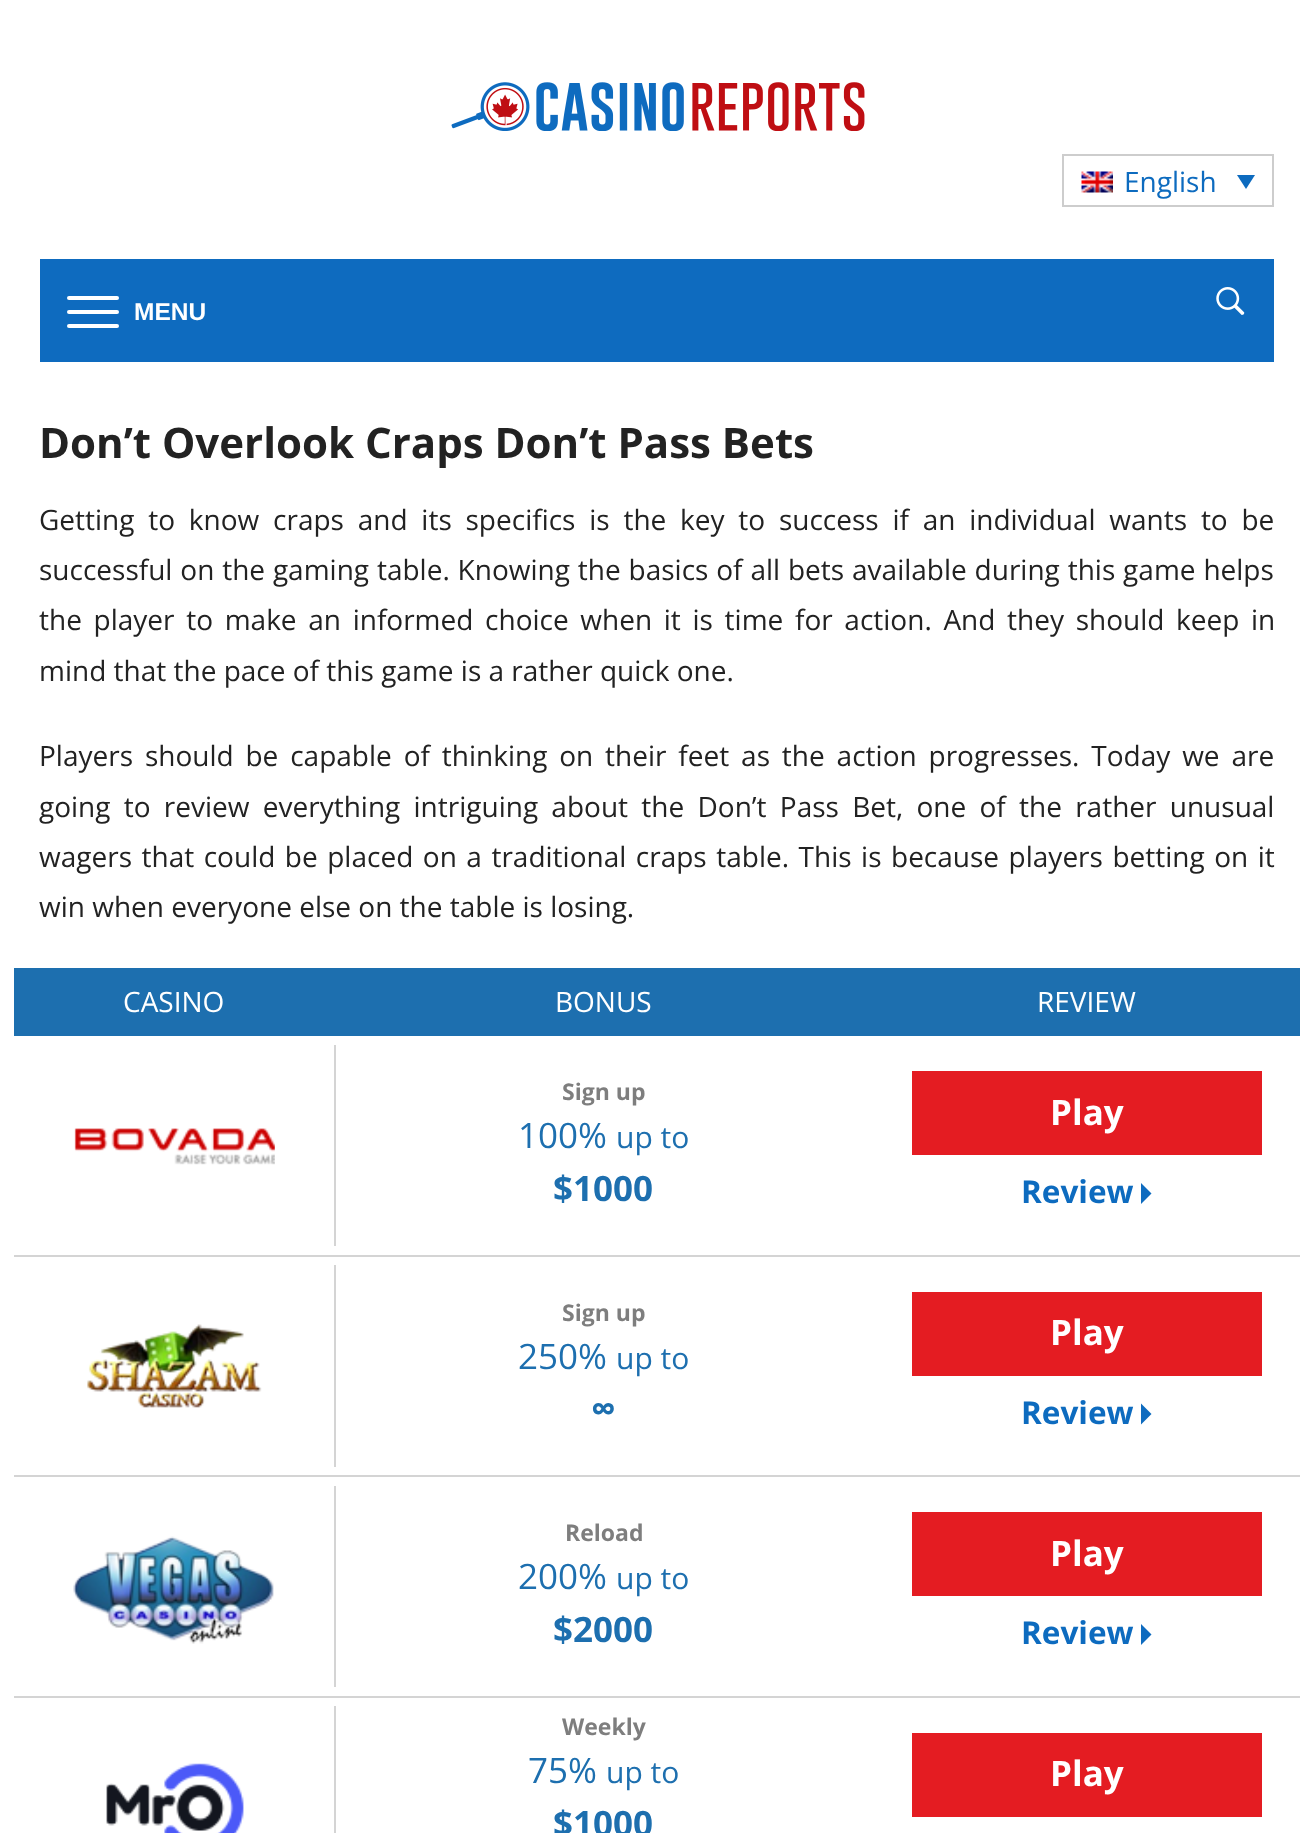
<svg xmlns="http://www.w3.org/2000/svg" width="1314" height="1833" viewBox="0 0 1314 1833">
  <rect width="100%" height="100%" fill="rgb(255,255,255)"/>
  <image x="451" y="82" width="414" height="49" href="pic1.png"/>
  <rect x="1063" y="155" width="210" height="51" fill="none" stroke="rgb(205,205,205)" stroke-width="2"/>
  <image x="1081" y="171" width="32" height="22" href="pic2.png"/>
  <text x="1124" y="192" font-family="Open Sans" font-size="28" fill="rgb(13,107,191)">English</text>
  <path d="M1237 175H1255L1246 189Z" fill="rgb(13,107,191)"/>
  <rect x="40" y="259" width="1234" height="103" fill="rgb(14,107,191)"/>
  <rect x="67" y="296" width="52" height="4" rx="2" fill="rgb(255,255,255)"/>
  <rect x="67" y="310" width="52" height="4" rx="2" fill="rgb(255,255,255)"/>
  <rect x="67" y="324" width="52" height="4" rx="2" fill="rgb(255,255,255)"/>
  <text x="134" y="320" font-family="Liberation Sans" font-size="24.5" font-weight="bold" fill="rgb(255,255,255)">MENU</text>
  <image x="1216" y="287" width="29" height="28" href="pic3.png"/>
  <text x="39" y="458" font-family="Open Sans" font-size="42" font-weight="bold" fill="rgb(34,34,34)">Don’t Overlook Craps Don’t Pass Bets</text>
  <g font-family="Open Sans" font-size="28" fill="rgb(34,34,34)">
    <text>
      <tspan x="39" y="530" word-spacing="6.5">Getting to know craps and its specifics is the key to success if an individual wants to be</tspan>
      <tspan x="39" y="580" word-spacing="0.6">successful on the gaming table. Knowing the basics of all bets available during this game helps</tspan>
      <tspan x="39" y="630" word-spacing="4.4">the player to make an informed choice when it is time for action. And they should keep in</tspan>
      <tspan x="39" y="681">mind that the pace of this game is a rather quick one.</tspan>
    </text>
    <text>
      <tspan x="39" y="766" word-spacing="4.6">Players should be capable of thinking on their feet as the action progresses. Today we are</tspan>
      <tspan x="39" y="817" word-spacing="6">going to review everything intriguing about the Don’t Pass Bet, one of the rather unusual</tspan>
      <tspan x="39" y="867" word-spacing="2.25">wagers that could be placed on a traditional craps table. This is because players betting on it</tspan>
      <tspan x="39" y="917">win when everyone else on the table is losing.</tspan>
    </text>
  </g>
  <rect x="14" y="968" width="1286" height="68" fill="rgb(29,111,175)"/>
  <g font-family="Open Sans" font-size="28" fill="rgb(255,255,255)">
    <text x="123" y="1012">CASINO</text>
    <text x="555" y="1012">BONUS</text>
    <text x="1037" y="1012">REVIEW</text>
  </g>
  <rect x="14" y="1255" width="1286" height="2" fill="rgb(212,212,212)"/>
  <rect x="334" y="1045" width="2" height="201" fill="rgb(212,212,212)"/>
  <image x="74" y="1128" width="201" height="37" href="pic4.png"/>
  <text x="562" y="1100" font-family="Open Sans" font-size="23" font-weight="bold" fill="rgb(126,126,126)">Sign up</text>
  <text x="518" y="1148" font-family="Open Sans" font-size="35" fill="rgb(29,111,175)">100%</text>
  <text x="616" y="1148" font-family="Open Sans" font-size="30" fill="rgb(29,111,175)">up to</text>
  <text x="553" y="1201" font-family="Open Sans" font-size="35" font-weight="bold" fill="rgb(29,111,175)">$1000</text>
  <rect x="912" y="1071" width="350" height="84" fill="rgb(228,28,34)"/>
  <text x="1050" y="1125" font-family="Open Sans" font-size="35" font-weight="bold" fill="rgb(255,255,255)">Play</text>
  <text x="1021" y="1203" font-family="Open Sans" font-size="31.5" font-weight="bold" fill="rgb(13,107,191)">Review</text>
  <path d="M1141 1204V1183L1151.5 1193.5Z" fill="rgb(14,107,191)"/>
  <rect x="14" y="1475" width="1286" height="2" fill="rgb(212,212,212)"/>
  <rect x="334" y="1265" width="2" height="202" fill="rgb(212,212,212)"/>
  <image x="87" y="1324" width="175" height="84" href="pic5.png"/>
  <text x="562" y="1321" font-family="Open Sans" font-size="23" font-weight="bold" fill="rgb(126,126,126)">Sign up</text>
  <text x="518" y="1369" font-family="Open Sans" font-size="35" fill="rgb(29,111,175)">250%</text>
  <text x="616" y="1369" font-family="Open Sans" font-size="30" fill="rgb(29,111,175)">up to</text>
  <text x="591" y="1421" font-family="Open Sans" font-size="35" font-weight="bold" fill="rgb(29,111,175)">∞</text>
  <rect x="912" y="1292" width="350" height="84" fill="rgb(228,28,34)"/>
  <text x="1050" y="1345" font-family="Open Sans" font-size="35" font-weight="bold" fill="rgb(255,255,255)">Play</text>
  <text x="1021" y="1424" font-family="Open Sans" font-size="31.5" font-weight="bold" fill="rgb(13,107,191)">Review</text>
  <path d="M1141 1424.5V1403.5L1151.5 1414Z" fill="rgb(14,107,191)"/>
  <rect x="14" y="1696" width="1286" height="2" fill="rgb(212,212,212)"/>
  <rect x="334" y="1486" width="2" height="201" fill="rgb(212,212,212)"/>
  <image x="73" y="1536" width="201" height="108" href="pic6.png"/>
  <text x="565" y="1541" font-family="Open Sans" font-size="23" font-weight="bold" fill="rgb(126,126,126)">Reload</text>
  <text x="518" y="1589" font-family="Open Sans" font-size="35" fill="rgb(29,111,175)">200%</text>
  <text x="616" y="1589" font-family="Open Sans" font-size="30" fill="rgb(29,111,175)">up to</text>
  <text x="553" y="1642" font-family="Open Sans" font-size="35" font-weight="bold" fill="rgb(29,111,175)">$2000</text>
  <rect x="912" y="1512" width="350" height="84" fill="rgb(228,28,34)"/>
  <text x="1050" y="1566" font-family="Open Sans" font-size="35" font-weight="bold" fill="rgb(255,255,255)">Play</text>
  <text x="1021" y="1644" font-family="Open Sans" font-size="31.5" font-weight="bold" fill="rgb(13,107,191)">Review</text>
  <path d="M1141 1645V1624L1151.5 1634.5Z" fill="rgb(14,107,191)"/>
  <rect x="334" y="1706" width="2" height="127" fill="rgb(212,212,212)"/>
  <image x="106" y="1763" width="138" height="70" href="pic7.png"/>
  <text x="562" y="1735" font-family="Open Sans" font-size="23" font-weight="bold" fill="rgb(126,126,126)">Weekly</text>
  <text x="528" y="1783" font-family="Open Sans" font-size="35" fill="rgb(29,111,175)">75%</text>
  <text x="606" y="1783" font-family="Open Sans" font-size="30" fill="rgb(29,111,175)">up to</text>
  <text x="553" y="1836" font-family="Open Sans" font-size="35" font-weight="bold" fill="rgb(29,111,175)">$1000</text>
  <rect x="912" y="1733" width="350" height="84" fill="rgb(228,28,34)"/>
  <text x="1050" y="1786" font-family="Open Sans" font-size="35" font-weight="bold" fill="rgb(255,255,255)">Play</text>
</svg>
